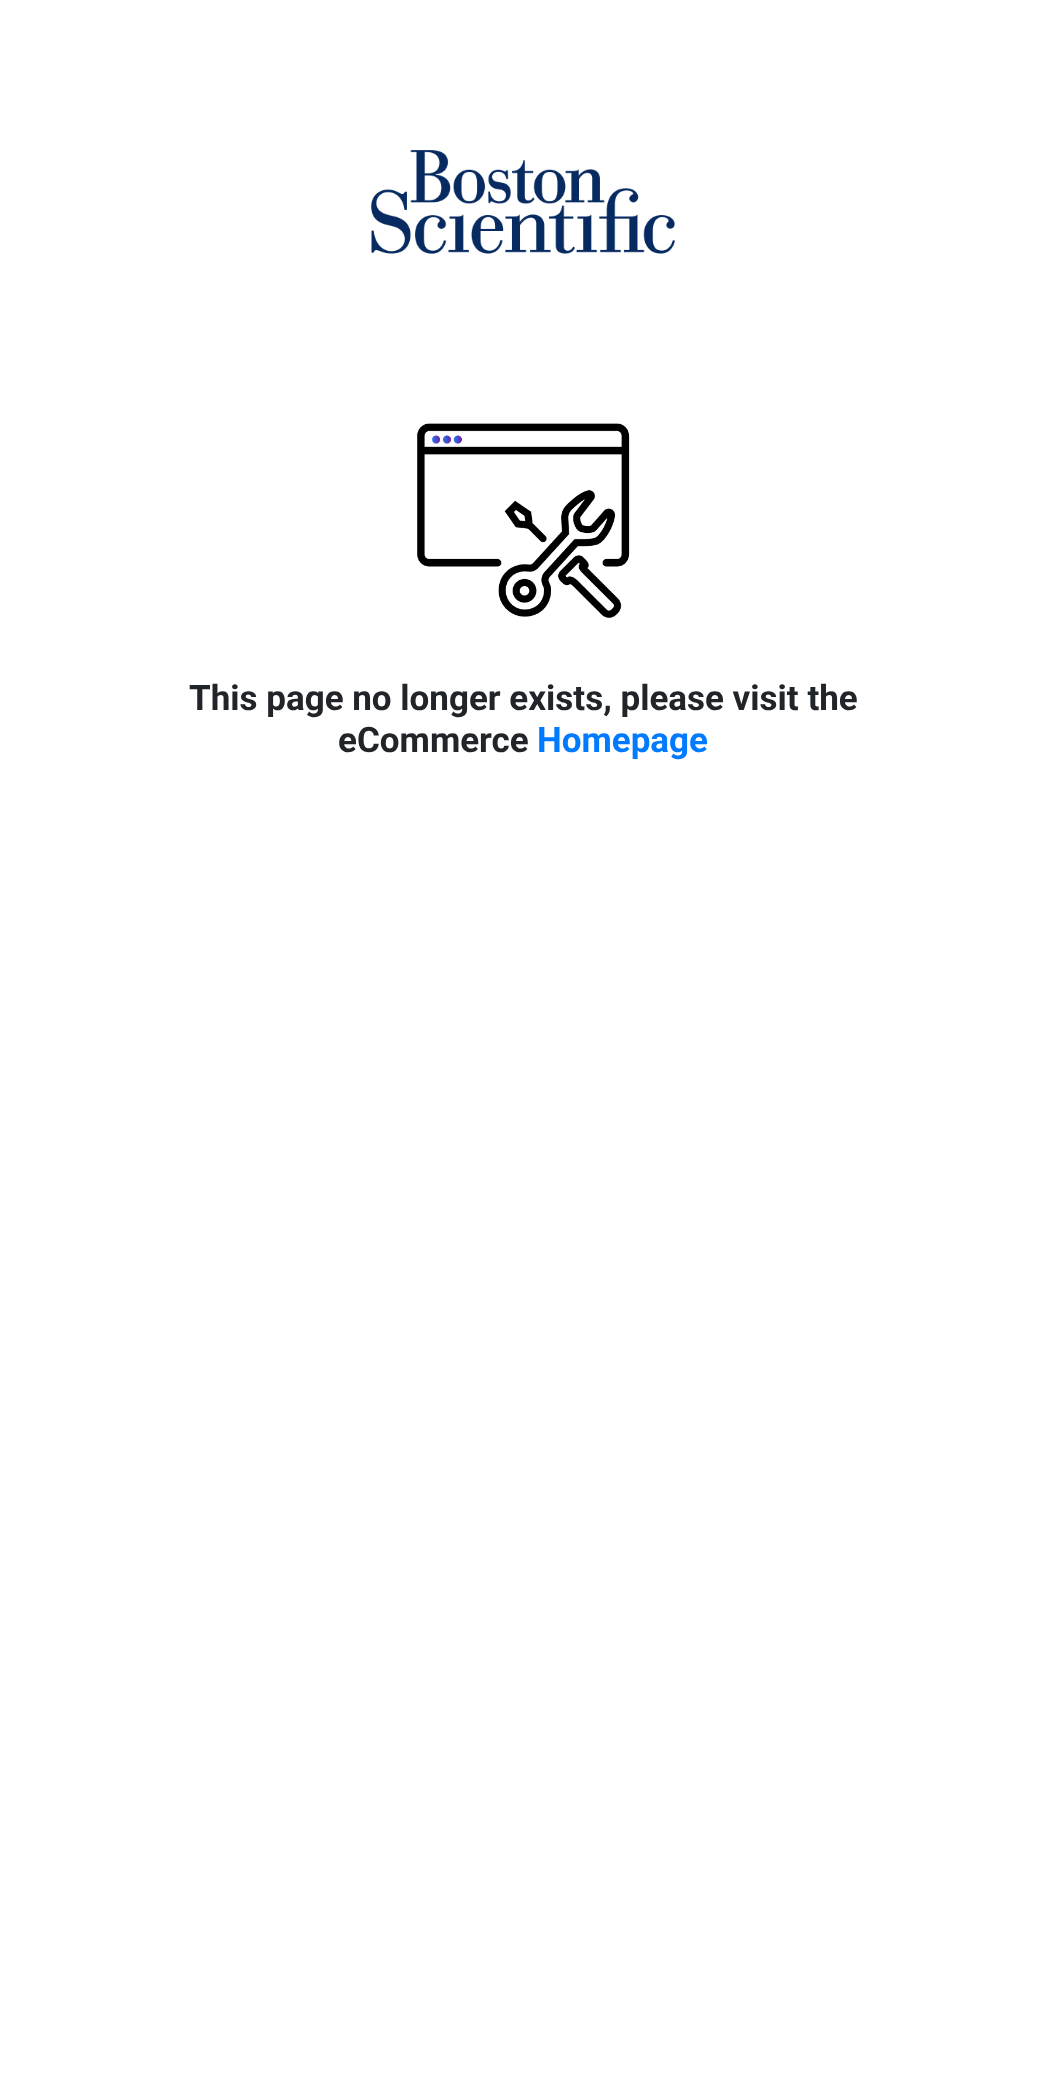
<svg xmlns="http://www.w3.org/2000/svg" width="1046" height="2088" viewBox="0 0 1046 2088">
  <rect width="100%" height="100%" fill="rgb(255,255,255)"/>
  <image x="371" y="150" width="304" height="104" href="pic1.png"/>
  <image x="417" y="423" width="213" height="195" href="pic2.png"/>
  <g font-family="Roboto" font-size="35" font-weight="bold" fill="rgb(33,37,41)">
    <text x="189" y="710">This page no longer exists, please visit the</text>
    <text x="338" y="752">eCommerce</text>
  </g>
  <text x="537" y="752" font-family="Roboto" font-size="35" font-weight="bold" fill="rgb(0,123,255)">Homepage</text>
</svg>
